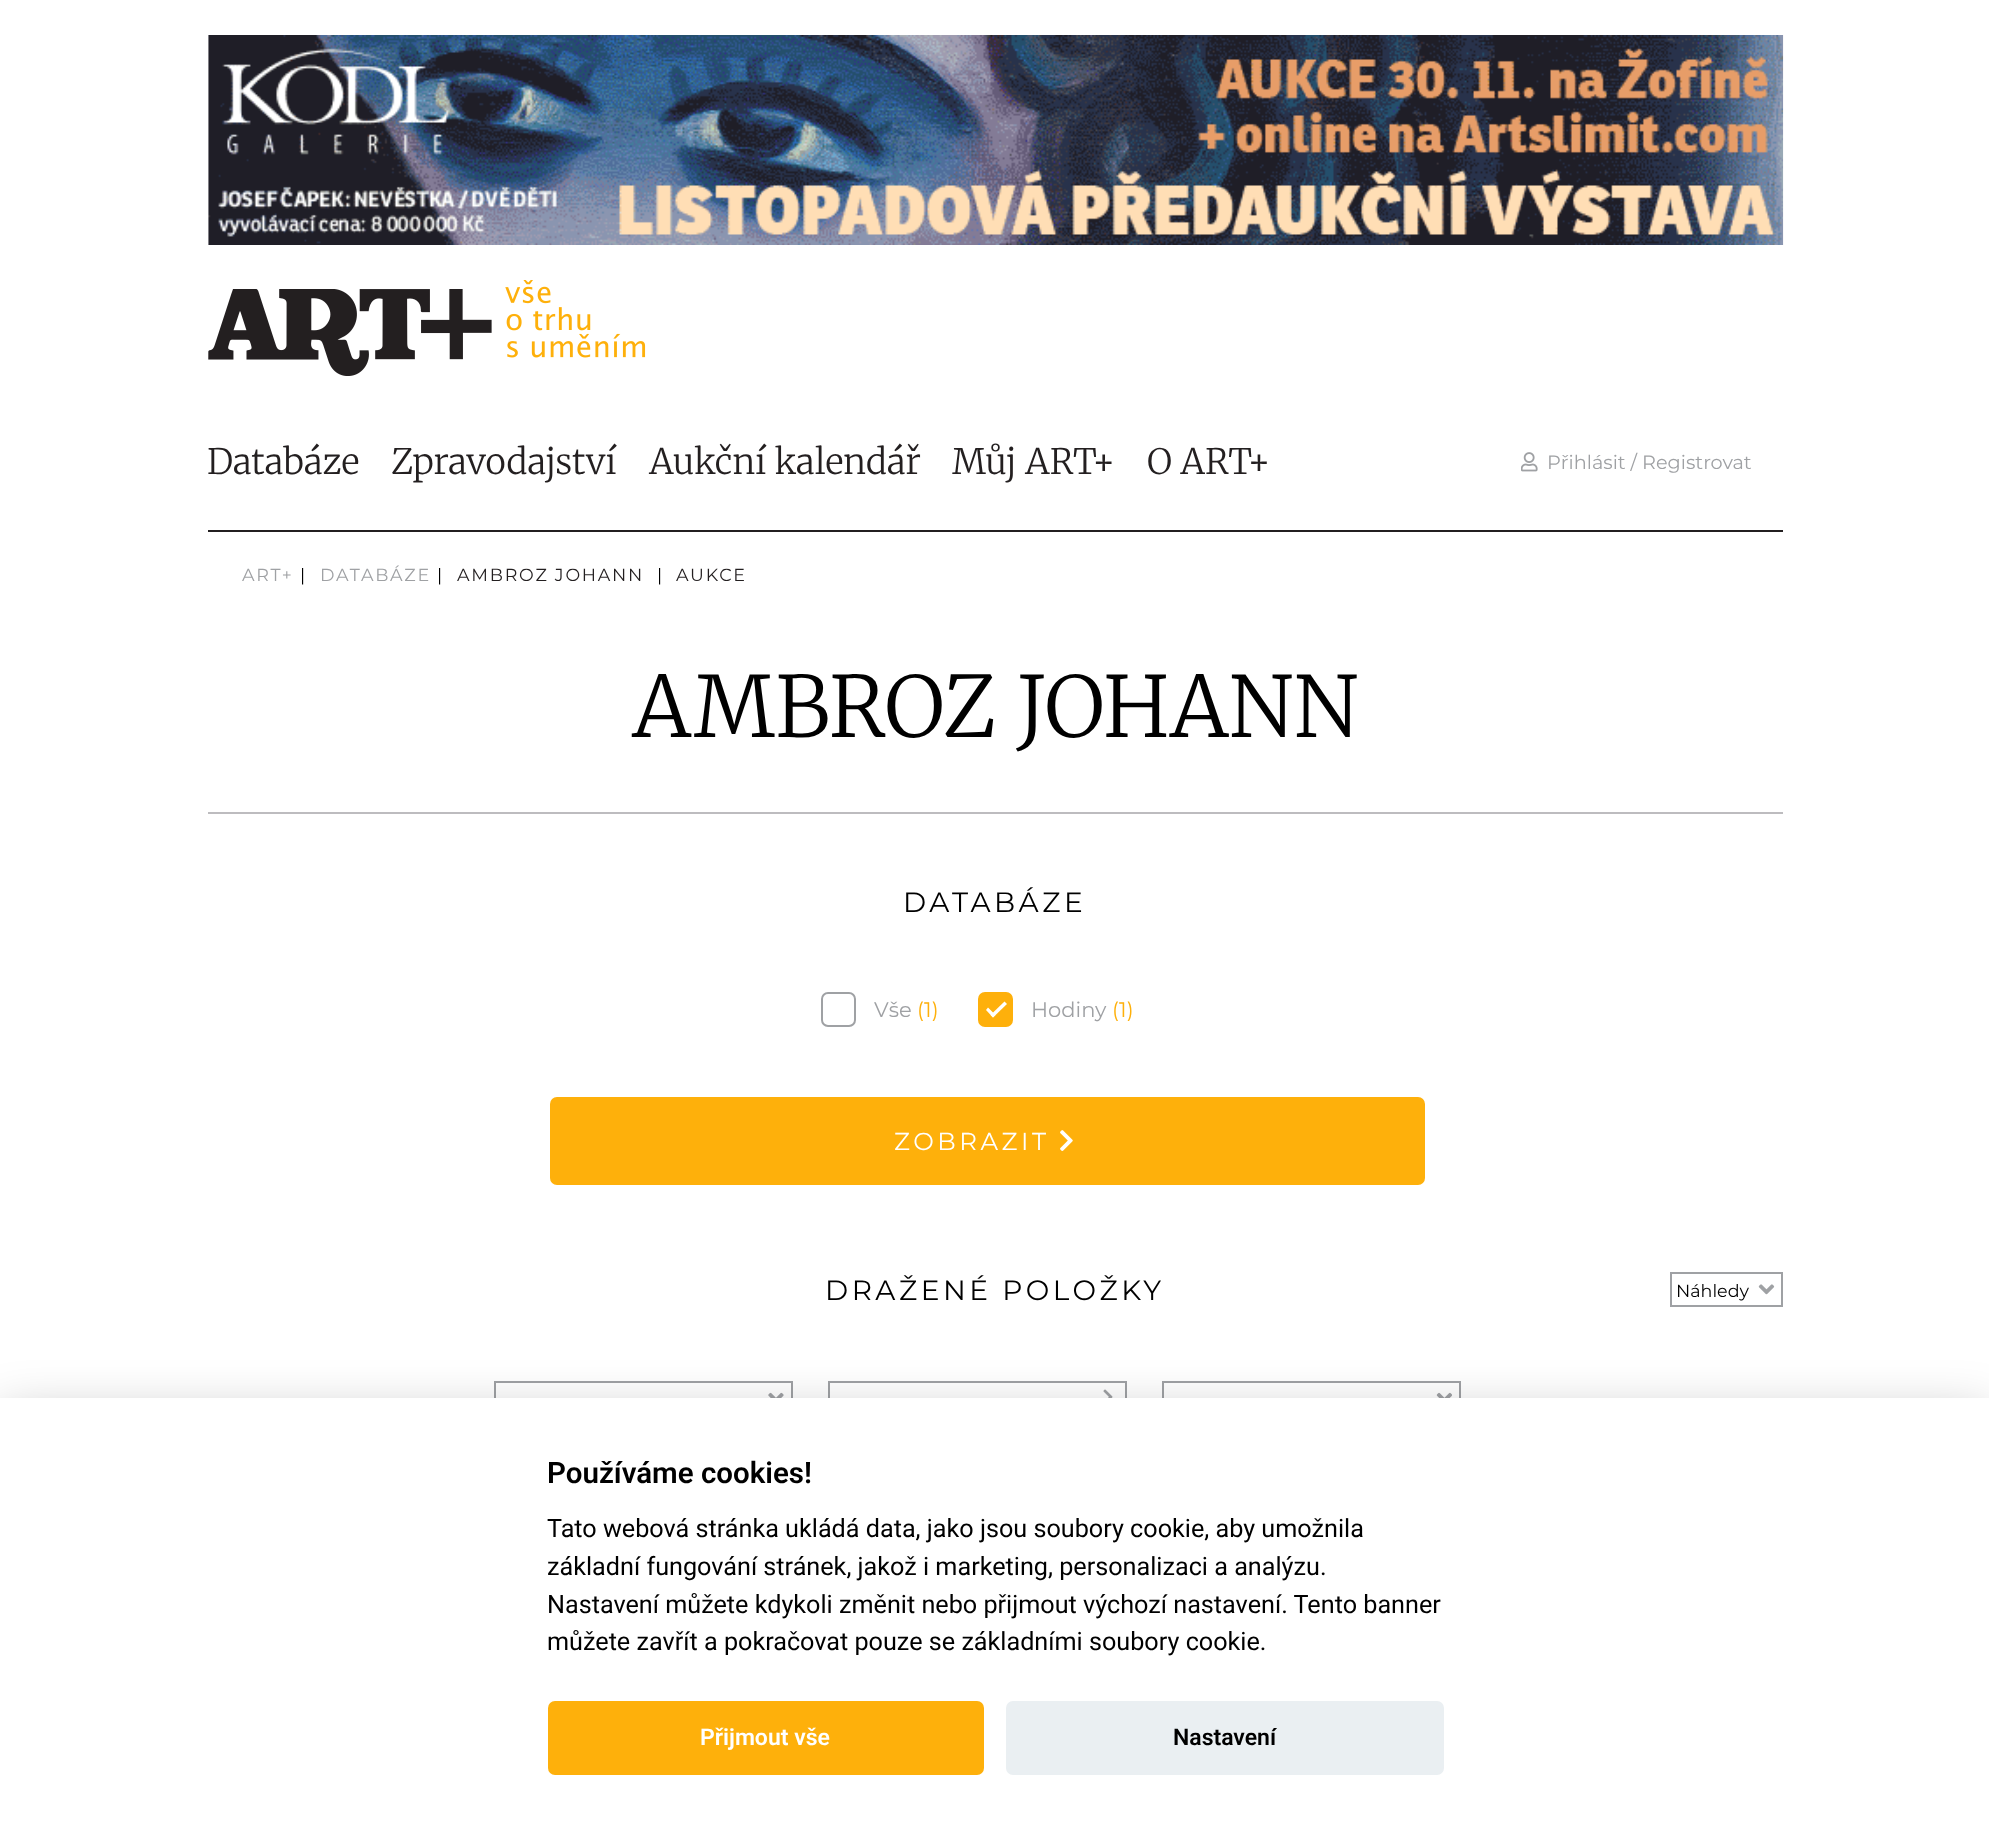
<svg xmlns="http://www.w3.org/2000/svg" width="1989" height="1829" viewBox="0 0 1989 1829">
  <rect width="100%" height="100%" fill="rgb(255,255,255)"/>
  <image x="208" y="35" width="1576" height="210" href="pic1.png"/>
  <rect x="208" y="530" width="1575" height="2" fill="rgb(35,31,32)"/>
  <image x="208" y="289" width="284" height="87" href="pic2.png"/>
  <image x="505" y="280" width="141" height="78" href="pic3.png"/>
  <g font-family="Merriweather" font-size="35" font-weight="300" fill="rgb(35,31,32)">
    <text x="207" y="474">Databáze</text>
    <text x="391" y="474">Zpravodajství</text>
    <text x="649" y="474">Aukční kalendář</text>
    <text x="952" y="474">Můj ART+</text>
    <text x="1147" y="474">O ART+</text>
  </g>
  <image x="1521" y="452" width="17" height="20" href="pic4.png"/>
  <text x="1547" y="469" font-family="Montserrat" font-size="19.25" fill="rgb(159,161,164)">Přihlásit / Registrovat</text>
  <text x="242" y="581" font-family="Montserrat" font-size="17.5" letter-spacing="1.75" fill="rgb(159,161,164)">ART+</text>
  <text x="300" y="581" font-family="Montserrat" font-size="17.5" letter-spacing="1.75" fill="rgb(0,0,0)">|</text>
  <text x="320" y="581" font-family="Montserrat" font-size="17.5" letter-spacing="1.75" fill="rgb(159,161,164)">DATABÁZE</text>
  <text x="437" y="581" font-family="Montserrat" font-size="17.5" letter-spacing="1.75" fill="rgb(0,0,0)">|</text>
  <text x="457" y="581" font-family="Montserrat" font-size="17.5" letter-spacing="1.75" fill="rgb(35,31,32)">AMBROZ JOHANN</text>
  <text x="657" y="581" font-family="Montserrat" font-size="17.5" letter-spacing="1.75" fill="rgb(0,0,0)">|</text>
  <text x="676" y="581" font-family="Montserrat" font-size="17.5" letter-spacing="1.75" fill="rgb(35,31,32)">AUKCE</text>
  <text x="632" y="737" font-family="Merriweather" font-size="84" font-weight="300" fill="rgb(0,0,0)">AMBROZ JOHANN</text>
  <rect x="208" y="812" width="1575" height="2" fill="rgb(189,188,191)"/>
  <text x="903" y="912" font-family="Montserrat" font-size="28" letter-spacing="3.5" fill="rgb(0,0,0)">DATABÁZE</text>
  <rect x="822" y="993" width="33" height="33" rx="6" fill="none" stroke="rgb(159,161,164)" stroke-width="2"/>
  <text x="874" y="1017" font-family="Montserrat" font-size="21" fill="rgb(159,161,164)">Vše</text>
  <text x="917" y="1017" font-family="Montserrat" font-size="21" fill="rgb(254,176,11)">(1)</text>
  <rect x="979" y="993" width="33" height="33" rx="6" fill="rgb(254,176,11)" stroke="rgb(254,176,11)" stroke-width="2"/>
  <path d="M1004.5 1001.5L1007 1004L993 1017.5L990.5 1015Z" fill="rgb(255,255,255)"/>
  <path d="M988 1007.5L995.5 1015L993 1017.5L986 1010Z" fill="rgb(255,255,255)"/>
  <text x="1031" y="1017" font-family="Montserrat" font-size="21" fill="rgb(159,161,164)">Hodiny</text>
  <text x="1112" y="1017" font-family="Montserrat" font-size="21" fill="rgb(254,176,11)">(1)</text>
  <rect x="550" y="1097" width="875" height="88" rx="7" fill="rgb(254,176,11)"/>
  <text x="894" y="1150" font-family="Montserrat" font-size="24.5" letter-spacing="3.5" fill="rgb(255,255,255)">ZOBRAZIT</text>
  <image x="1060" y="1130" width="13" height="21" href="pic5.png"/>
  <text x="825" y="1300" font-family="Montserrat" font-size="28" letter-spacing="3.5" fill="rgb(0,0,0)">DRAŽENÉ POLOŽKY</text>
  <rect x="1671" y="1273" width="111" height="33" fill="none" stroke="rgb(159,161,164)" stroke-width="2"/>
  <text x="1676" y="1297" font-family="Montserrat" font-size="17.5" fill="rgb(0,0,0)">Náhledy</text>
  <image x="1758" y="1284" width="17" height="11" href="pic6.png"/>
  <rect x="495" y="1382" width="297" height="33" fill="none" stroke="rgb(159,161,164)" stroke-width="2"/>
  <image x="768" y="1392" width="16" height="6" href="pic7.png"/>
  <rect x="829" y="1382" width="297" height="33" fill="none" stroke="rgb(159,161,164)" stroke-width="2"/>
  <image x="1103" y="1389" width="10" height="9" href="pic8.png"/>
  <rect x="1163" y="1382" width="297" height="33" fill="none" stroke="rgb(159,161,164)" stroke-width="2"/>
  <image x="1436" y="1392" width="16" height="6" href="pic9.png"/>
  <rect x="0" y="1416" width="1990" height="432" fill="rgba(2,2,3,0.28)" filter="blur(26px)"/>
  <rect x="0" y="1398" width="1989" height="431" fill="rgb(255,255,255)"/>
  <text x="547" y="1483" font-family="Roboto" font-size="29.5" font-weight="600" fill="rgb(0,0,0)">Používáme cookies!</text>
  <g font-family="Roboto" font-size="25.2" fill="rgb(0,0,0)">
    <text>
      <tspan x="547" y="1537">Tato webová stránka ukládá data, jako jsou soubory cookie, aby umožnila</tspan>
      <tspan x="547" y="1575">základní fungování stránek, jakož i marketing, personalizaci a analýzu.</tspan>
      <tspan x="547" y="1613">Nastavení můžete kdykoli změnit nebo přijmout výchozí nastavení. Tento banner</tspan>
      <tspan x="547" y="1650">můžete zavřít a pokračovat pouze se základními soubory cookie.</tspan>
    </text>
  </g>
  <rect x="548" y="1701" width="436" height="74" rx="7" fill="rgb(254,176,11)"/>
  <text x="700" y="1745" font-family="Roboto" font-size="23" font-weight="600" fill="rgb(255,255,255)">Přijmout vše</text>
  <rect x="1006" y="1701" width="438" height="74" rx="7" fill="rgb(234,239,242)"/>
  <text x="1173" y="1745" font-family="Roboto" font-size="23" font-weight="600" fill="rgb(0,0,0)">Nastavení</text>
</svg>
